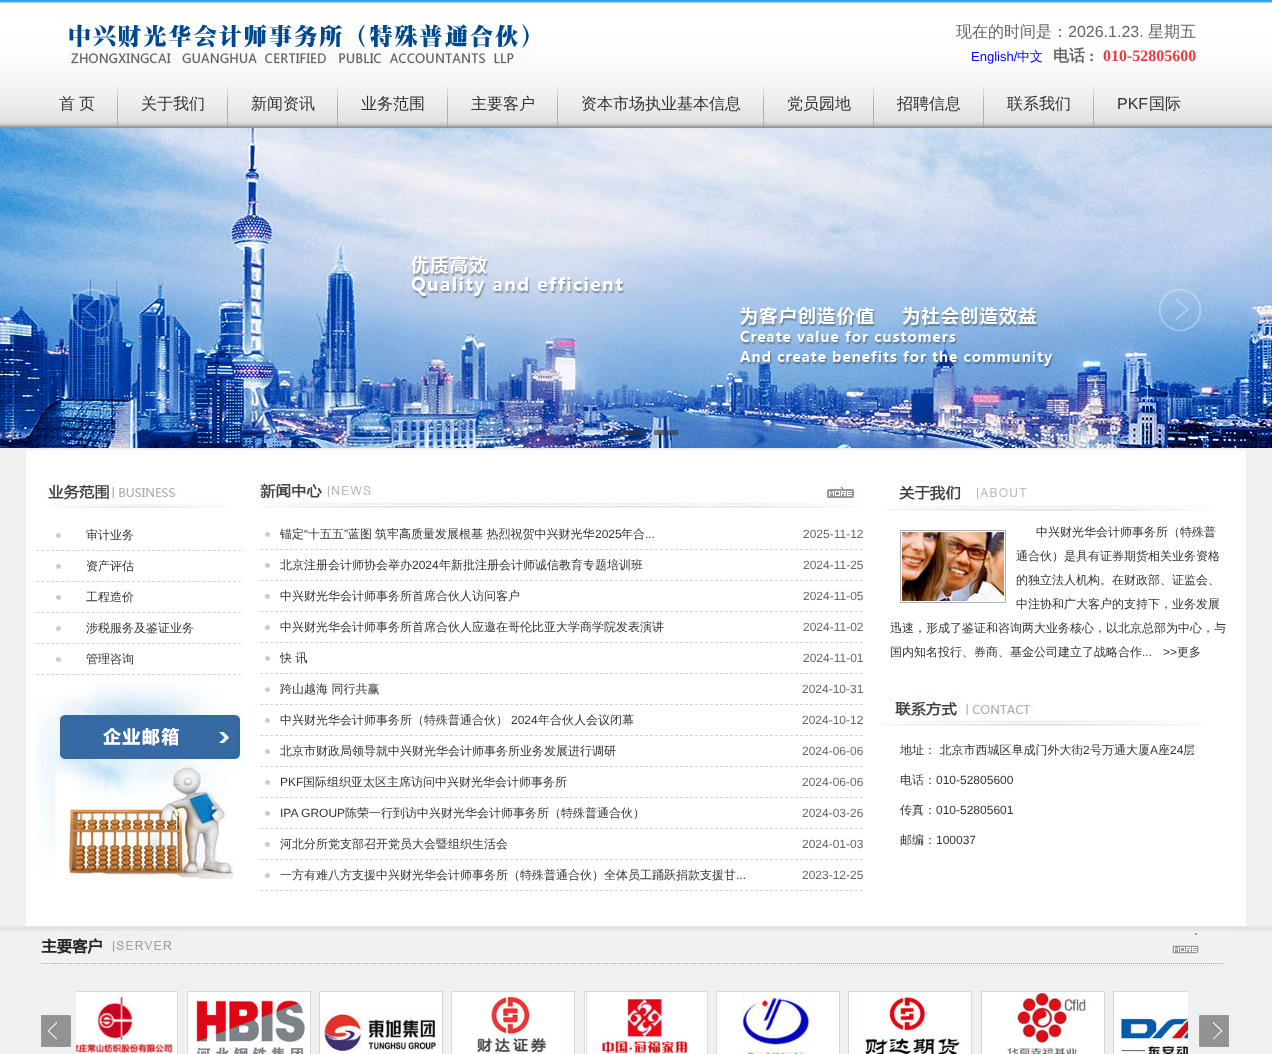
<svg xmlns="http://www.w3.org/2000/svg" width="1272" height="1054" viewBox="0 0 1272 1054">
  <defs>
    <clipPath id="clip1"><rect x="76" y="966" width="1112" height="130"/></clipPath>
  </defs>
  <rect width="100%" height="100%" fill="rgb(240,240,240)"/>
  <image x="0" y="0" width="1272" height="128" href="pic1.png"/>
  <image x="68" y="18" width="462" height="46" href="pic2.png"/>
  <text x="956" y="37" font-family="WenQuanYi Zen Hei" font-size="16" font-weight="500" fill="rgb(102,102,102)">现在的时间是：</text>
  <text x="1068" y="37" font-family="Liberation Sans" font-size="16" fill="rgb(102,102,102)">2026.1.23.</text>
  <text x="1148" y="37" font-family="WenQuanYi Zen Hei" font-size="16" font-weight="500" fill="rgb(102,102,102)">星期五</text>
  <text x="971" y="61" font-family="Liberation Sans" font-size="13" fill="rgb(0,0,255)">English/</text>
  <text x="1017" y="61" font-family="WenQuanYi Zen Hei" font-size="13" font-weight="500" fill="rgb(0,0,255)">中文</text>
  <text x="1053" y="61" font-family="WenQuanYi Zen Hei" font-size="16" font-weight="bold" fill="rgb(102,102,102)">电话</text>
  <text x="1089" y="61" font-family="Liberation Serif" font-size="16" font-weight="bold" fill="rgb(102,102,102)">:</text>
  <text x="1103" y="61" font-family="Liberation Serif" font-size="16" font-weight="bold" fill="rgb(236,60,64)">010-52805600</text>
  <image x="117" y="84" width="1" height="43" href="pic3.png"/>
  <g font-family="WenQuanYi Zen Hei" font-size="16" font-weight="500" fill="rgb(51,51,51)">
    <text x="59" y="109">首</text>
    <text x="79" y="109">页</text>
  </g>
  <image x="227" y="84" width="1" height="43" href="pic3.png"/>
  <text x="141" y="109" font-family="WenQuanYi Zen Hei" font-size="16" font-weight="500" fill="rgb(51,51,51)">关于我们</text>
  <image x="337" y="84" width="1" height="43" href="pic3.png"/>
  <text x="251" y="109" font-family="WenQuanYi Zen Hei" font-size="16" font-weight="500" fill="rgb(51,51,51)">新闻资讯</text>
  <image x="447" y="84" width="1" height="43" href="pic3.png"/>
  <text x="361" y="109" font-family="WenQuanYi Zen Hei" font-size="16" font-weight="500" fill="rgb(51,51,51)">业务范围</text>
  <image x="557" y="84" width="1" height="43" href="pic3.png"/>
  <text x="471" y="109" font-family="WenQuanYi Zen Hei" font-size="16" font-weight="500" fill="rgb(51,51,51)">主要客户</text>
  <image x="763" y="84" width="1" height="43" href="pic3.png"/>
  <text x="581" y="109" font-family="WenQuanYi Zen Hei" font-size="16" font-weight="500" fill="rgb(51,51,51)">资本市场执业基本信息</text>
  <image x="873" y="84" width="1" height="43" href="pic3.png"/>
  <text x="787" y="109" font-family="WenQuanYi Zen Hei" font-size="16" font-weight="500" fill="rgb(51,51,51)">党员园地</text>
  <image x="983" y="84" width="1" height="43" href="pic3.png"/>
  <text x="897" y="109" font-family="WenQuanYi Zen Hei" font-size="16" font-weight="500" fill="rgb(51,51,51)">招聘信息</text>
  <image x="1093" y="84" width="1" height="43" href="pic3.png"/>
  <text x="1007" y="109" font-family="WenQuanYi Zen Hei" font-size="16" font-weight="500" fill="rgb(51,51,51)">联系我们</text>
  <text x="1117" y="109" font-family="Liberation Sans" font-size="16" fill="rgb(51,51,51)">PKF</text>
  <text x="1149" y="109" font-family="WenQuanYi Zen Hei" font-size="16" font-weight="500" fill="rgb(51,51,51)">国际</text>
  <image x="0" y="128" width="1272" height="320" href="pic4.png"/>
  <image x="411" y="255" width="214" height="44" href="pic5.png"/>
  <image x="740" y="307" width="314" height="62" href="pic6.png"/>
  <image x="70" y="288" width="44" height="44" href="pic7.png"/>
  <image x="1158" y="288" width="44" height="44" href="pic8.png"/>
  <rect x="584" y="430" width="24" height="5" fill="rgba(255,255,255,0.6)"/>
  <rect x="619" y="430" width="24" height="5" fill="rgba(51,51,51,0.6)"/>
  <rect x="654" y="430" width="24" height="5" fill="rgba(51,51,51,0.6)"/>
  <rect x="26" y="450" width="1220" height="476" fill="rgb(255,255,255)"/>
  <image x="36" y="681" width="205" height="198" href="pic9.png"/>
  <image x="42" y="480" width="184" height="29" href="pic10.png"/>
  <image x="56" y="532" width="5" height="7" href="pic11.png"/>
  <path d="M36 550.5H241" fill="none" stroke="rgb(212,212,212)" stroke-dasharray="3 2.05"/>
  <text x="86" y="539" font-family="WenQuanYi Zen Hei" font-size="12" font-weight="500" fill="rgb(51,51,51)">审计业务</text>
  <image x="56" y="563" width="5" height="7" href="pic11.png"/>
  <path d="M36 581.5H241" fill="none" stroke="rgb(212,212,212)" stroke-dasharray="3 2.05"/>
  <text x="86" y="570" font-family="WenQuanYi Zen Hei" font-size="12" font-weight="500" fill="rgb(51,51,51)">资产评估</text>
  <image x="56" y="594" width="5" height="7" href="pic11.png"/>
  <path d="M36 612.5H241" fill="none" stroke="rgb(212,212,212)" stroke-dasharray="3 2.05"/>
  <text x="86" y="601" font-family="WenQuanYi Zen Hei" font-size="12" font-weight="500" fill="rgb(51,51,51)">工程造价</text>
  <image x="56" y="625" width="5" height="7" href="pic11.png"/>
  <path d="M36 643.5H241" fill="none" stroke="rgb(212,212,212)" stroke-dasharray="3 2.05"/>
  <text x="86" y="632" font-family="WenQuanYi Zen Hei" font-size="12" font-weight="500" fill="rgb(51,51,51)">涉税服务及鉴证业务</text>
  <image x="56" y="656" width="5" height="7" href="pic11.png"/>
  <path d="M36 674.5H241" fill="none" stroke="rgb(212,212,212)" stroke-dasharray="3 2.05"/>
  <text x="86" y="663" font-family="WenQuanYi Zen Hei" font-size="12" font-weight="500" fill="rgb(51,51,51)">管理咨询</text>
  <image x="257" y="480" width="601" height="31" href="pic12.png"/>
  <text x="840" y="496" font-family="Liberation Sans" font-size="12" fill="rgb(51,51,51)">`</text>
  <image x="265" y="531" width="5" height="7" href="pic11.png"/>
  <path d="M260 549.5H863" fill="none" stroke="rgb(212,212,212)" stroke-dasharray="3 2"/>
  <text x="280" y="538" font-family="WenQuanYi Zen Hei" font-size="12" font-weight="500" fill="rgb(51,51,51)">锚定</text>
  <text x="304" y="538" font-family="Liberation Sans" font-size="12" fill="rgb(51,51,51)">“</text>
  <text x="308" y="538" font-family="WenQuanYi Zen Hei" font-size="12" font-weight="500" fill="rgb(51,51,51)">十五五</text>
  <text x="344" y="538" font-family="Liberation Sans" font-size="12" fill="rgb(51,51,51)">”</text>
  <g font-family="WenQuanYi Zen Hei" font-size="12" font-weight="500" fill="rgb(51,51,51)">
    <text x="348" y="538">蓝图</text>
    <text x="375" y="538">筑牢高质量发展根基 热烈祝贺中兴财光华</text>
  </g>
  <text x="595" y="538" font-family="Liberation Sans" font-size="12" fill="rgb(51,51,51)">2025</text>
  <text x="621" y="538" font-family="WenQuanYi Zen Hei" font-size="12" font-weight="500" fill="rgb(51,51,51)">年合</text>
  <text x="645" y="538" font-family="Liberation Sans" font-size="12" fill="rgb(51,51,51)">...</text>
  <text x="803" y="538" font-family="Liberation Sans" font-size="12" fill="rgb(102,102,102)">2025-11-12</text>
  <image x="265" y="562" width="5" height="7" href="pic11.png"/>
  <path d="M260 580.5H863" fill="none" stroke="rgb(212,212,212)" stroke-dasharray="3 2"/>
  <text x="280" y="569" font-family="WenQuanYi Zen Hei" font-size="12" font-weight="500" fill="rgb(51,51,51)">北京注册会计师协会举办</text>
  <text x="412" y="569" font-family="Liberation Sans" font-size="12" fill="rgb(51,51,51)">2024</text>
  <text x="439" y="569" font-family="WenQuanYi Zen Hei" font-size="12" font-weight="500" fill="rgb(51,51,51)">年新批注册会计师诚信教育专题培训班</text>
  <text x="803" y="569" font-family="Liberation Sans" font-size="12" fill="rgb(102,102,102)">2024-11-25</text>
  <image x="265" y="593" width="5" height="7" href="pic11.png"/>
  <path d="M260 611.5H863" fill="none" stroke="rgb(212,212,212)" stroke-dasharray="3 2"/>
  <text x="280" y="600" font-family="WenQuanYi Zen Hei" font-size="12" font-weight="500" fill="rgb(51,51,51)">中兴财光华会计师事务所首席合伙人访问客户</text>
  <text x="803" y="600" font-family="Liberation Sans" font-size="12" fill="rgb(102,102,102)">2024-11-05</text>
  <image x="265" y="624" width="5" height="7" href="pic11.png"/>
  <path d="M260 642.5H863" fill="none" stroke="rgb(212,212,212)" stroke-dasharray="3 2"/>
  <text x="280" y="631" font-family="WenQuanYi Zen Hei" font-size="12" font-weight="500" fill="rgb(51,51,51)">中兴财光华会计师事务所首席合伙人应邀在哥伦比亚大学商学院发表演讲</text>
  <text x="803" y="631" font-family="Liberation Sans" font-size="12" fill="rgb(102,102,102)">2024-11-02</text>
  <image x="265" y="655" width="5" height="7" href="pic11.png"/>
  <path d="M260 673.5H863" fill="none" stroke="rgb(212,212,212)" stroke-dasharray="3 2"/>
  <text x="280" y="662" font-family="WenQuanYi Zen Hei" font-size="12" font-weight="500" fill="rgb(51,51,51)">快 讯</text>
  <text x="803" y="662" font-family="Liberation Sans" font-size="12" fill="rgb(102,102,102)">2024-11-01</text>
  <image x="265" y="686" width="5" height="7" href="pic11.png"/>
  <path d="M260 704.5H863" fill="none" stroke="rgb(212,212,212)" stroke-dasharray="3 2"/>
  <text x="280" y="693" font-family="WenQuanYi Zen Hei" font-size="12" font-weight="500" fill="rgb(51,51,51)">跨山越海 同行共赢</text>
  <text x="802" y="693" font-family="Liberation Sans" font-size="12" fill="rgb(102,102,102)">2024-10-31</text>
  <image x="265" y="717" width="5" height="7" href="pic11.png"/>
  <path d="M260 735.5H863" fill="none" stroke="rgb(212,212,212)" stroke-dasharray="3 2"/>
  <text x="280" y="724" font-family="WenQuanYi Zen Hei" font-size="12" font-weight="500" fill="rgb(51,51,51)">中兴财光华会计师事务所（特殊普通合伙）</text>
  <text x="511" y="724" font-family="Liberation Sans" font-size="12" fill="rgb(51,51,51)">2024</text>
  <text x="538" y="724" font-family="WenQuanYi Zen Hei" font-size="12" font-weight="500" fill="rgb(51,51,51)">年合伙人会议闭幕</text>
  <text x="802" y="724" font-family="Liberation Sans" font-size="12" fill="rgb(102,102,102)">2024-10-12</text>
  <image x="265" y="748" width="5" height="7" href="pic11.png"/>
  <path d="M260 766.5H863" fill="none" stroke="rgb(212,212,212)" stroke-dasharray="3 2"/>
  <text x="280" y="755" font-family="WenQuanYi Zen Hei" font-size="12" font-weight="500" fill="rgb(51,51,51)">北京市财政局领导就中兴财光华会计师事务所业务发展进行调研</text>
  <text x="802" y="755" font-family="Liberation Sans" font-size="12" fill="rgb(102,102,102)">2024-06-06</text>
  <image x="265" y="779" width="5" height="7" href="pic11.png"/>
  <path d="M260 797.5H863" fill="none" stroke="rgb(212,212,212)" stroke-dasharray="3 2"/>
  <text x="280" y="786" font-family="Liberation Sans" font-size="12" fill="rgb(51,51,51)">PKF</text>
  <text x="303" y="786" font-family="WenQuanYi Zen Hei" font-size="12" font-weight="500" fill="rgb(51,51,51)">国际组织亚太区主席访问中兴财光华会计师事务所</text>
  <text x="802" y="786" font-family="Liberation Sans" font-size="12" fill="rgb(102,102,102)">2024-06-06</text>
  <image x="265" y="810" width="5" height="7" href="pic11.png"/>
  <path d="M260 828.5H863" fill="none" stroke="rgb(212,212,212)" stroke-dasharray="3 2"/>
  <text x="280" y="817" font-family="Liberation Sans" font-size="12" fill="rgb(51,51,51)">IPA GROUP</text>
  <text x="345" y="817" font-family="WenQuanYi Zen Hei" font-size="12" font-weight="500" fill="rgb(51,51,51)">陈荣一行到访中兴财光华会计师事务所（特殊普通合伙）</text>
  <text x="802" y="817" font-family="Liberation Sans" font-size="12" fill="rgb(102,102,102)">2024-03-26</text>
  <image x="265" y="841" width="5" height="7" href="pic11.png"/>
  <path d="M260 859.5H863" fill="none" stroke="rgb(212,212,212)" stroke-dasharray="3 2"/>
  <text x="280" y="848" font-family="WenQuanYi Zen Hei" font-size="12" font-weight="500" fill="rgb(51,51,51)">河北分所党支部召开党员大会暨组织生活会</text>
  <text x="802" y="848" font-family="Liberation Sans" font-size="12" fill="rgb(102,102,102)">2024-01-03</text>
  <image x="265" y="872" width="5" height="7" href="pic11.png"/>
  <path d="M260 890.5H863" fill="none" stroke="rgb(212,212,212)" stroke-dasharray="3 2"/>
  <text x="280" y="879" font-family="WenQuanYi Zen Hei" font-size="12" font-weight="500" fill="rgb(51,51,51)">一方有难八方支援中兴财光华会计师事务所（特殊普通合伙）全体员工踊跃捐款支援甘</text>
  <text x="736" y="879" font-family="Liberation Sans" font-size="12" fill="rgb(51,51,51)">...</text>
  <text x="802" y="879" font-family="Liberation Sans" font-size="12" fill="rgb(102,102,102)">2023-12-25</text>
  <image x="886" y="480" width="324" height="31" href="pic13.png"/>
  <rect x="900.5" y="530.5" width="105" height="72" fill="none" stroke="rgb(175,175,175)"/>
  <image x="902" y="532" width="102" height="69" href="pic14.png"/>
  <g font-family="WenQuanYi Zen Hei" font-size="12" font-weight="500" fill="rgb(51,51,51)">
    <text x="1036" y="536">中兴财光华会计师事务所（特殊普</text>
    <text x="1016" y="560">通合伙）是具有证券期货相关业务资格</text>
    <text x="1016" y="584">的独立法人机构。在财政部、证监会、</text>
    <text x="1016" y="608">中注协和广大客户的支持下，业务发展</text>
    <text x="890" y="632">迅速，形成了鉴证和咨询两大业务核心，以北京总部为中心，与</text>
    <text x="890" y="656">国内知名投行、券商、基金公司建立了战略合作</text>
  </g>
  <g font-family="Liberation Sans" font-size="12" fill="rgb(51,51,51)">
    <text x="1142" y="656">...</text>
    <text x="1163" y="656">&gt;&gt;</text>
  </g>
  <text x="1177" y="656" font-family="WenQuanYi Zen Hei" font-size="12" font-weight="500" fill="rgb(51,51,51)">更多</text>
  <image x="882" y="695" width="321" height="31" href="pic15.png"/>
  <text x="900" y="754" font-family="WenQuanYi Zen Hei" font-size="12" font-weight="500" fill="rgb(51,51,51)">地址： 北京市西城区阜成门外大街</text>
  <text x="1083" y="754" font-family="Liberation Sans" font-size="12" fill="rgb(51,51,51)">2</text>
  <text x="1090" y="754" font-family="WenQuanYi Zen Hei" font-size="12" font-weight="500" fill="rgb(51,51,51)">号万通大厦</text>
  <text x="1150" y="754" font-family="Liberation Sans" font-size="12" fill="rgb(51,51,51)">A</text>
  <text x="1158" y="754" font-family="WenQuanYi Zen Hei" font-size="12" font-weight="500" fill="rgb(51,51,51)">座</text>
  <text x="1170" y="754" font-family="Liberation Sans" font-size="12" fill="rgb(51,51,51)">24</text>
  <g font-family="WenQuanYi Zen Hei" font-size="12" font-weight="500" fill="rgb(51,51,51)">
    <text x="1183" y="754">层</text>
    <text x="900" y="784">电话：</text>
  </g>
  <text x="936" y="784" font-family="Liberation Sans" font-size="12" fill="rgb(51,51,51)">010-52805600</text>
  <text x="900" y="814" font-family="WenQuanYi Zen Hei" font-size="12" font-weight="500" fill="rgb(51,51,51)">传真：</text>
  <text x="936" y="814" font-family="Liberation Sans" font-size="12" fill="rgb(51,51,51)">010-52805601</text>
  <text x="900" y="844" font-family="WenQuanYi Zen Hei" font-size="12" font-weight="500" fill="rgb(51,51,51)">邮编：</text>
  <text x="936" y="844" font-family="Liberation Sans" font-size="12" fill="rgb(51,51,51)">100037</text>
  <rect x="0" y="926" width="1272" height="5" fill="rgb(229,229,231)"/>
  <image x="36" y="931" width="1197" height="35" href="pic16.png"/>
  <text x="1194" y="942" font-family="Liberation Sans" font-size="12" fill="rgb(51,51,51)">`</text>
  <rect x="76" y="992" width="101" height="62" fill="rgb(255,255,255)"/>
  <image x="41" y="1015" width="30" height="32" href="pic26.png"/>
  <g clip-path="url(#clip1)">
    <rect x="54.5" y="991.5" width="123" height="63" fill="none" stroke="rgb(211,218,220)"/>
  </g>
  <rect x="187.5" y="991.5" width="123" height="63" fill="rgb(255,255,255)" stroke="rgb(211,218,220)"/>
  <rect x="319.5" y="991.5" width="123" height="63" fill="rgb(255,255,255)" stroke="rgb(211,218,220)"/>
  <rect x="451.5" y="991.5" width="123" height="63" fill="rgb(255,255,255)" stroke="rgb(211,218,220)"/>
  <rect x="584.5" y="991.5" width="123" height="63" fill="rgb(255,255,255)" stroke="rgb(211,218,220)"/>
  <rect x="716.5" y="991.5" width="123" height="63" fill="rgb(255,255,255)" stroke="rgb(211,218,220)"/>
  <rect x="848.5" y="991.5" width="123" height="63" fill="rgb(255,255,255)" stroke="rgb(211,218,220)"/>
  <rect x="981.5" y="991.5" width="123" height="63" fill="rgb(255,255,255)" stroke="rgb(211,218,220)"/>
  <rect x="1114" y="992" width="74" height="62" fill="rgb(255,255,255)"/>
  <image x="1199" y="1015" width="30" height="32" href="pic27.png"/>
  <g clip-path="url(#clip1)">
    <rect x="1113.5" y="991.5" width="123" height="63" fill="none" stroke="rgb(211,218,220)"/>
  </g>
  <image x="76" y="993" width="100" height="61" href="pic17.png"/>
  <image x="195" y="999" width="112" height="55" href="pic18.png"/>
  <image x="321" y="1011" width="119" height="43" href="pic19.png"/>
  <image x="475" y="993" width="73" height="61" href="pic20.png"/>
  <image x="586" y="993" width="102" height="61" href="pic21.png"/>
  <image x="742" y="993" width="70" height="61" href="pic22.png"/>
  <image x="864" y="993" width="98" height="61" href="pic23.png"/>
  <image x="1007" y="993" width="82" height="61" href="pic24.png"/>
  <image x="1121" y="1017" width="67" height="37" href="pic25.png"/>
</svg>
